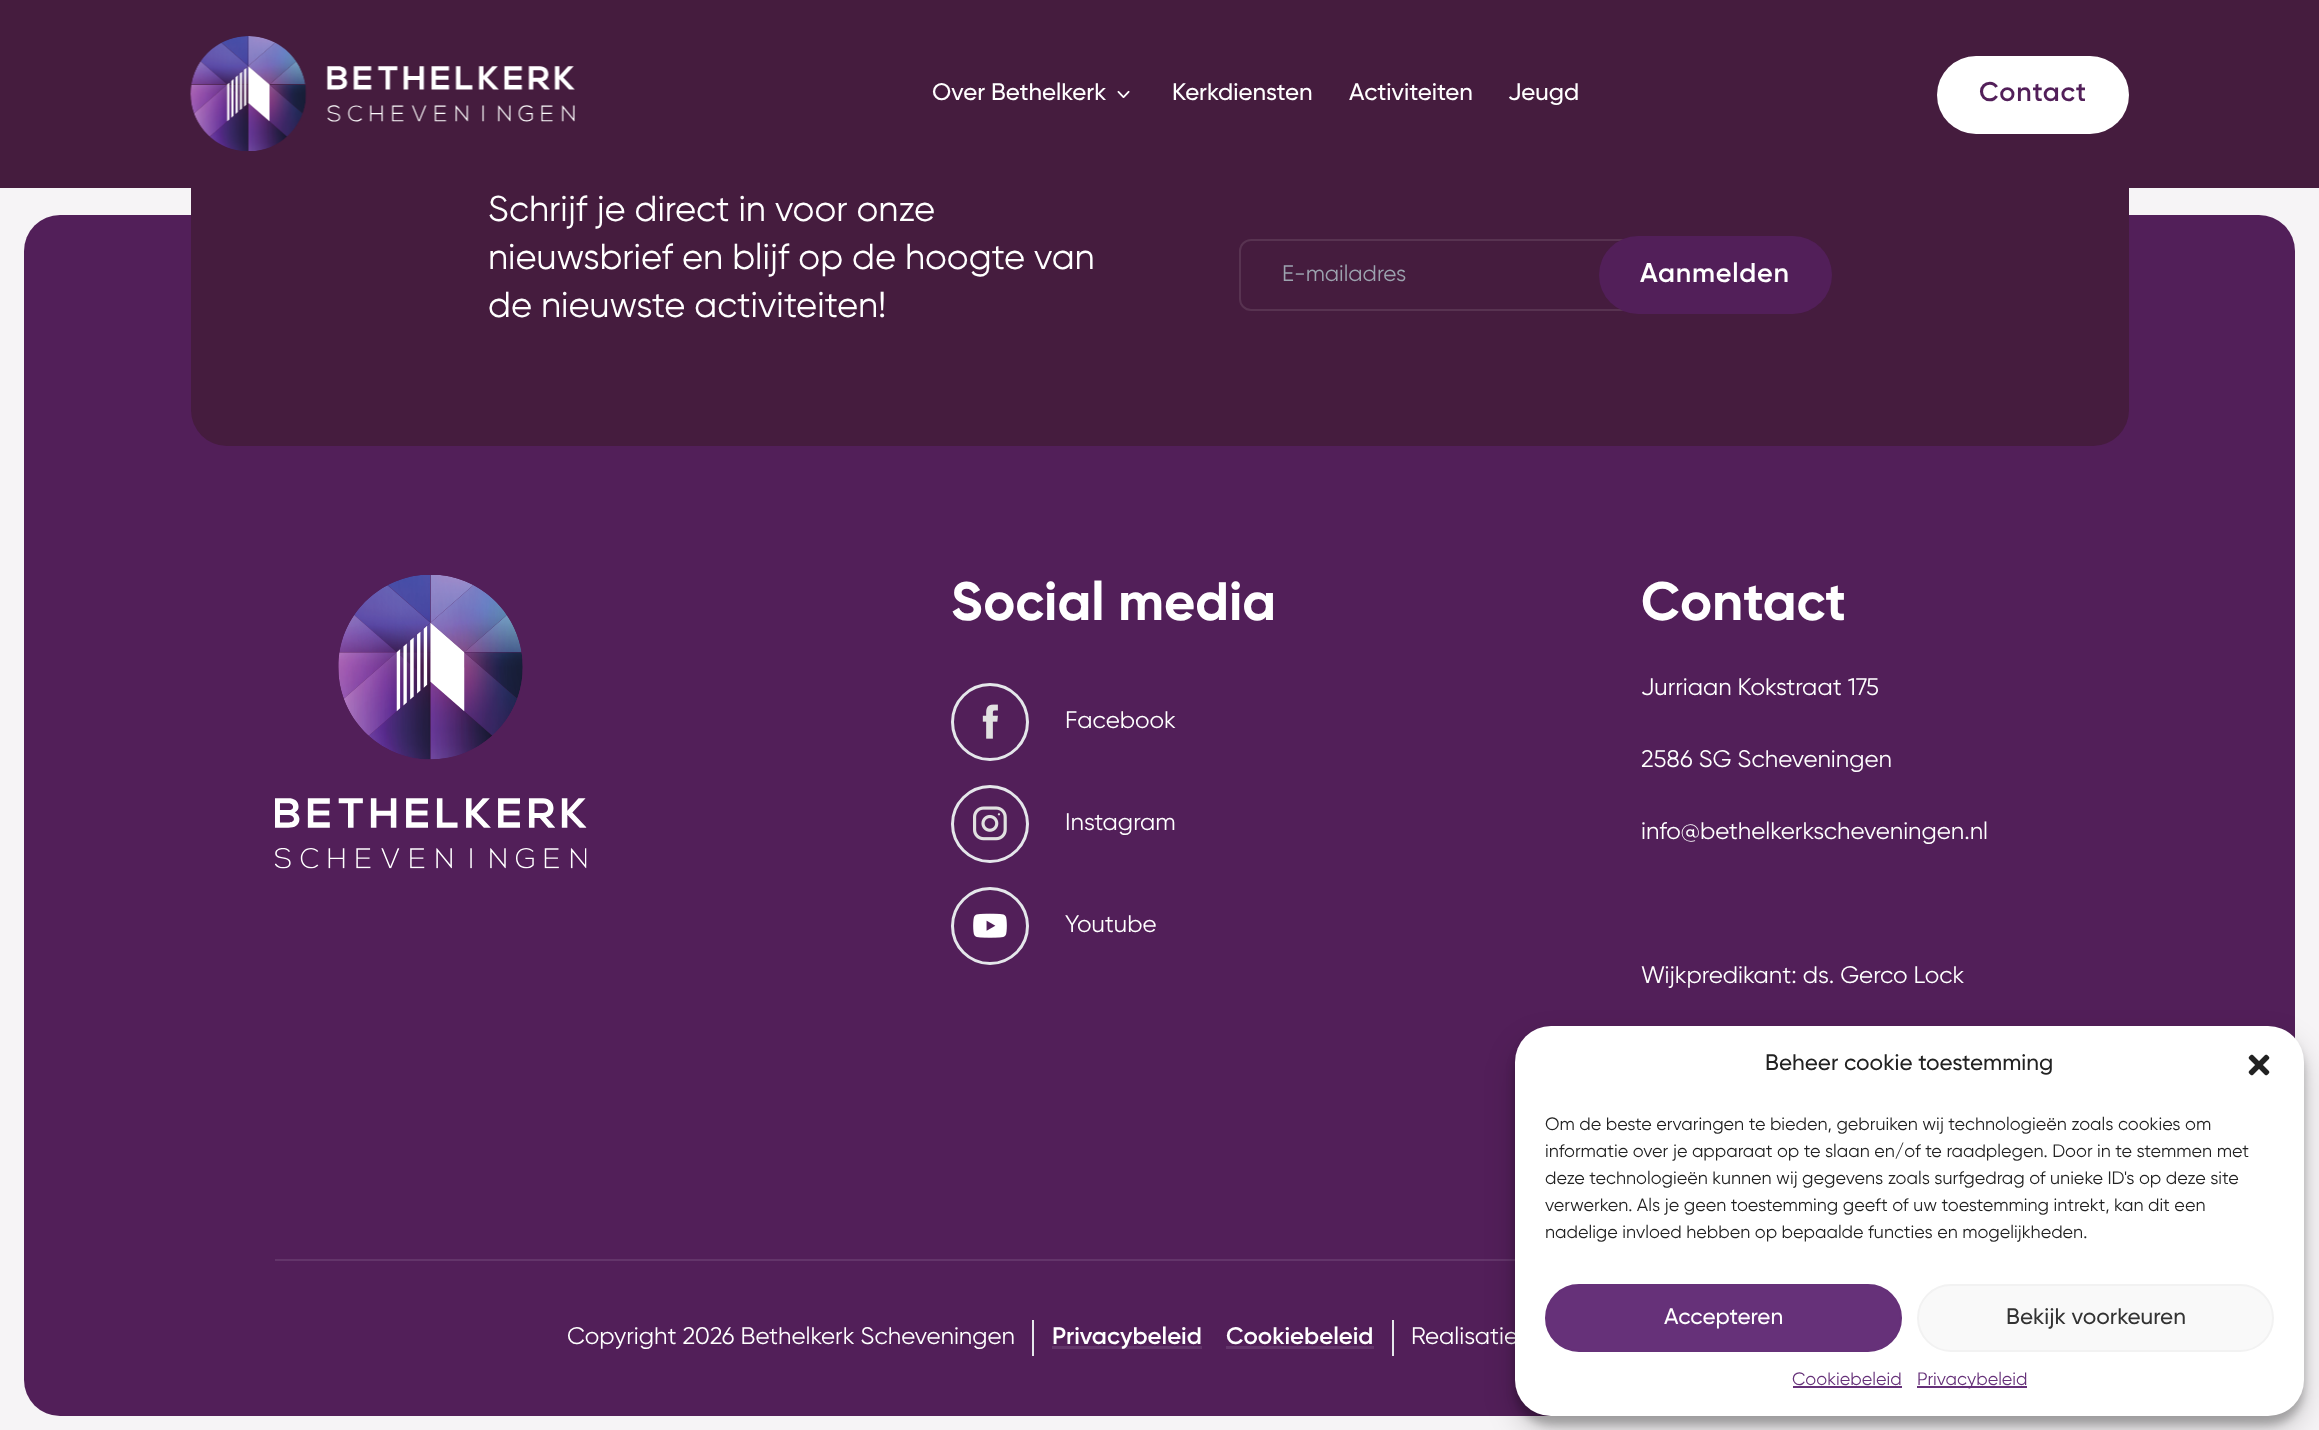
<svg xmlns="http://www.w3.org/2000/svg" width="2319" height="1430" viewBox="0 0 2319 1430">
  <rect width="100%" height="100%" fill="rgb(246,244,246)"/>
  <rect x="24" y="215" width="2271" height="1201" rx="36" fill="rgb(82,31,89)"/>
  <rect x="191" y="71" width="1938" height="375" rx="36" fill="rgb(69,28,62)"/>
  <rect x="0" y="0" width="2319" height="188" fill="rgb(69,28,62)"/>
  <image x="190" y="36" width="385" height="115" href="pic1.png"/>
  <text x="932" y="100" font-family="Gilroy" font-size="24" font-weight="500" fill="rgb(255,255,255)">Over Bethelkerk</text>
  <image x="1117" y="90" width="13" height="8" href="pic2.png"/>
  <g font-family="Gilroy" font-size="24" font-weight="500" fill="rgb(255,255,255)">
    <text x="1172" y="100">Kerkdiensten</text>
    <text x="1349" y="100">Activiteiten</text>
    <text x="1508" y="100">Jeugd</text>
  </g>
  <rect x="1937" y="56" width="192" height="78" rx="39" fill="rgb(255,255,255)"/>
  <text x="1979" y="101" font-family="Gilroy" font-size="27" font-weight="600" letter-spacing="0.75" fill="rgb(82,31,89)">Contact</text>
  <g font-family="Gilroy" font-size="36" fill="rgb(255,255,255)">
    <text>
      <tspan x="488" y="221">Schrijf je direct in voor onze</tspan>
      <tspan x="488" y="269">nieuwsbrief en blijf op de hoogte van</tspan>
      <tspan x="488" y="317">de nieuwste activiteiten!</tspan>
    </text>
  </g>
  <rect x="1240" y="240" width="430" height="70" rx="11" fill="none" stroke="rgb(88,51,81)" stroke-width="2"/>
  <text x="1282" y="281" font-family="Gilroy" font-size="22.5" fill="rgb(156,163,175)">E-mailadres</text>
  <rect x="1599" y="236" width="233" height="78" rx="39" fill="rgb(82,31,89)"/>
  <text x="1640" y="282" font-family="Gilroy" font-size="27" font-weight="600" letter-spacing="0.75" fill="rgb(255,255,255)">Aanmelden</text>
  <image x="275" y="575" width="312" height="294" href="pic3.png"/>
  <text x="951" y="620" font-family="Gilroy" font-size="54" font-weight="bold" fill="rgb(255,255,255)">Social media</text>
  <circle cx="990" cy="722" r="37.5" fill="none" stroke="rgb(229,231,235)" stroke-width="3"/>
  <image x="982" y="704" width="16" height="35" href="pic4.png"/>
  <text x="1065" y="728" font-family="Gilroy" font-size="24" fill="rgb(255,255,255)">Facebook</text>
  <circle cx="990" cy="824" r="37.5" fill="none" stroke="rgb(229,231,235)" stroke-width="3"/>
  <image x="973" y="806" width="34" height="35" href="pic5.png"/>
  <text x="1065" y="830" font-family="Gilroy" font-size="24" fill="rgb(255,255,255)">Instagram</text>
  <circle cx="990" cy="926" r="37.5" fill="none" stroke="rgb(229,231,235)" stroke-width="3"/>
  <image x="973" y="913" width="34" height="25" href="pic6.png"/>
  <text x="1065" y="932" font-family="Gilroy" font-size="24" fill="rgb(255,255,255)">Youtube</text>
  <text x="1641" y="620" font-family="Gilroy" font-size="54" font-weight="bold" fill="rgb(255,255,255)">Contact</text>
  <g font-family="Gilroy" font-size="24" fill="rgb(255,255,255)">
    <text x="1641" y="695">Jurriaan Kokstraat 175</text>
    <text x="1641" y="767">2586 SG Scheveningen</text>
    <text x="1641" y="839">info@bethelkerkscheveningen.nl</text>
    <text x="1641" y="983">Wijkpredikant: ds. Gerco Lock</text>
  </g>
  <rect x="275" y="1259" width="1240" height="2" fill="rgb(99,53,106)"/>
  <text x="567" y="1344" font-family="Gilroy" font-size="24" fill="rgb(255,255,255)">Copyright 2026 Bethelkerk Scheveningen</text>
  <rect x="1392" y="1320" width="2" height="36" fill="rgb(229,231,235)"/>
  <rect x="1032" y="1320" width="2" height="36" fill="rgb(229,231,235)"/>
  <rect x="1052" y="1346" width="150" height="3" fill="rgb(99,53,106)"/>
  <g font-family="Gilroy" font-size="24" font-weight="600" fill="rgb(255,255,255)">
    <text x="1052" y="1344">Privacybeleid</text>
    <text x="1226" y="1344">Cookiebeleid</text>
  </g>
  <rect x="1226" y="1346" width="148" height="3" fill="rgb(99,53,106)"/>
  <text x="1411" y="1344" font-family="Gilroy" font-size="24" fill="rgb(255,255,255)">Realisatie</text>
  <rect x="1515" y="1035" width="789" height="390" rx="36" fill="rgba(0,0,0,0.23)" filter="blur(4.5px)"/>
  <rect x="1515" y="1041" width="789" height="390" rx="36" fill="rgba(0,0,0,0.19)" filter="blur(15px)"/>
  <rect x="1515" y="1026" width="789" height="390" rx="36" fill="rgb(255,255,255)"/>
  <text x="1765" y="1070" font-family="Gilroy" font-size="22.5" font-weight="500" fill="rgb(34,34,34)">Beheer cookie toestemming</text>
  <image x="2248" y="1054" width="22" height="22" href="pic7.png"/>
  <g font-family="Gilroy" font-size="18" fill="rgb(34,34,34)">
    <text>
      <tspan x="1545" y="1130">Om de beste ervaringen te bieden, gebruiken wij technologieën zoals cookies om</tspan>
      <tspan x="1545" y="1157">informatie over je apparaat op te slaan en/of te raadplegen. Door in te stemmen met</tspan>
      <tspan x="1545" y="1184">deze technologieën kunnen wij gegevens zoals surfgedrag of unieke ID's op deze site</tspan>
      <tspan x="1545" y="1211">verwerken. Als je geen toestemming geeft of uw toestemming intrekt, kan dit een</tspan>
      <tspan x="1545" y="1238">nadelige invloed hebben op bepaalde functies en mogelijkheden.</tspan>
    </text>
  </g>
  <rect x="1546" y="1285" width="355" height="66" rx="33" fill="rgb(102,49,121)" stroke="rgb(102,49,121)" stroke-width="2"/>
  <text x="1664" y="1324" font-family="Gilroy" font-size="22.5" font-weight="500" fill="rgb(255,255,255)">Accepteren</text>
  <rect x="1918" y="1285" width="355" height="66" rx="33" fill="rgb(249,249,249)" stroke="rgb(242,242,242)" stroke-width="2"/>
  <text x="2006" y="1324" font-family="Gilroy" font-size="22.5" font-weight="500" fill="rgb(51,51,51)">Bekijk voorkeuren</text>
  <text x="1792" y="1385" font-family="Gilroy" font-size="18" fill="rgb(102,49,121)">Cookiebeleid</text>
  <rect x="1793" y="1386" width="109" height="2" fill="rgb(102,49,121)"/>
  <rect x="1917" y="1386" width="110" height="2" fill="rgb(102,49,121)"/>
  <text x="1917" y="1385" font-family="Gilroy" font-size="18" fill="rgb(102,49,121)">Privacybeleid</text>
</svg>
